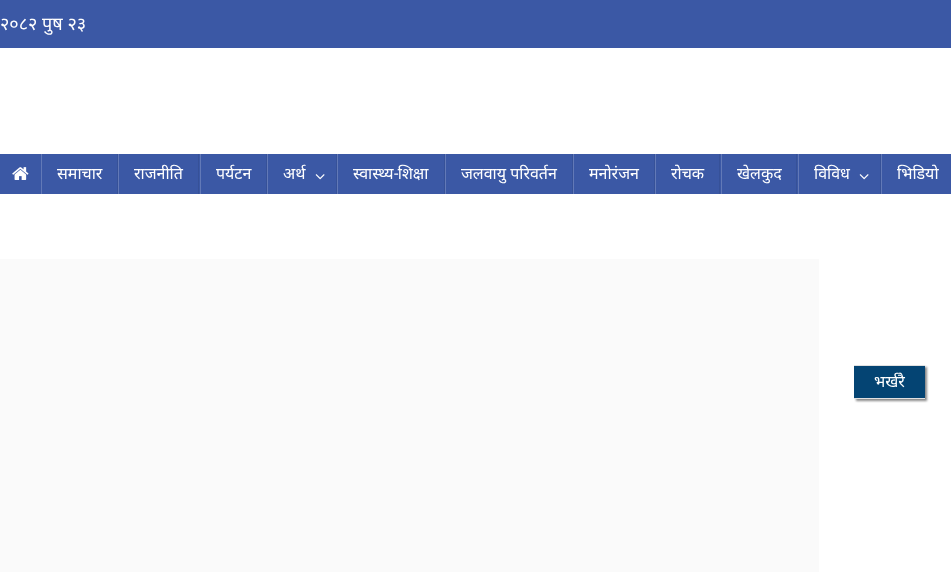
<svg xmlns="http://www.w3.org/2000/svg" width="951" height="572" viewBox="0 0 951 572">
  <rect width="100%" height="100%" fill="rgb(255,255,255)"/>
  <rect x="0" y="0" width="951" height="48" fill="rgb(59,88,165)"/>
  <text x="0" y="30" font-family="Noto Sans" font-size="18" fill="rgb(255,255,255)">२०८२ पुष २३</text>
  <rect x="0" y="154" width="951" height="40" fill="rgb(59,88,165)"/>
  <image x="12" y="167" width="17" height="13" href="pic1.png"/>
  <rect x="117" y="154" width="1" height="40" fill="rgb(54,81,152)"/>
  <rect x="41" y="154" width="1" height="40" fill="rgb(98,121,183)"/>
  <text x="57" y="179" font-family="Noto Sans" font-size="16" fill="rgb(255,255,255)">समाचार</text>
  <rect x="198" y="154" width="1" height="40" fill="rgb(54,81,152)"/>
  <rect x="118" y="154" width="1" height="40" fill="rgb(98,121,183)"/>
  <text x="134" y="179" font-family="Noto Sans" font-size="16" fill="rgb(255,255,255)">राजनीति</text>
  <rect x="266" y="154" width="1" height="40" fill="rgb(54,81,152)"/>
  <rect x="200" y="154" width="1" height="40" fill="rgb(98,121,183)"/>
  <text x="216" y="179" font-family="Noto Sans" font-size="16" fill="rgb(255,255,255)">पर्यटन</text>
  <rect x="336" y="154" width="1" height="40" fill="rgb(54,81,152)"/>
  <rect x="267" y="154" width="1" height="40" fill="rgb(98,121,183)"/>
  <text x="283" y="179" font-family="Noto Sans" font-size="16" fill="rgb(255,255,255)">अर्थ</text>
  <image x="315" y="174" width="10" height="6" href="pic2.png"/>
  <rect x="444" y="154" width="1" height="40" fill="rgb(54,81,152)"/>
  <rect x="337" y="154" width="1" height="40" fill="rgb(98,121,183)"/>
  <text x="353" y="179" font-family="Noto Sans" font-size="16" fill="rgb(255,255,255)">स्वास्थ्य शिक्षा</text>
  <text x="394" y="179" font-family="Roboto" font-size="16" fill="rgb(255,255,255)">-</text>
  <rect x="572" y="154" width="1" height="40" fill="rgb(54,81,152)"/>
  <rect x="445" y="154" width="1" height="40" fill="rgb(98,121,183)"/>
  <text x="461" y="179" font-family="Noto Sans" font-size="16" fill="rgb(255,255,255)">जलवायु परिवर्तन</text>
  <rect x="654" y="154" width="1" height="40" fill="rgb(54,81,152)"/>
  <rect x="573" y="154" width="1" height="40" fill="rgb(98,121,183)"/>
  <text x="589" y="179" font-family="Noto Sans" font-size="16" fill="rgb(255,255,255)">मनोरंजन</text>
  <rect x="719" y="154" width="1" height="40" fill="rgb(54,81,152)"/>
  <rect x="655" y="154" width="1" height="40" fill="rgb(98,121,183)"/>
  <text x="671" y="179" font-family="Noto Sans" font-size="16" fill="rgb(255,255,255)">रोचक</text>
  <rect x="796" y="154" width="1" height="40" fill="rgb(54,81,152)"/>
  <rect x="721" y="154" width="1" height="40" fill="rgb(98,121,183)"/>
  <text x="737" y="179" font-family="Noto Sans" font-size="16" fill="rgb(255,255,255)">खेलकुद</text>
  <rect x="880" y="154" width="1" height="40" fill="rgb(54,81,152)"/>
  <rect x="798" y="154" width="1" height="40" fill="rgb(98,121,183)"/>
  <text x="814" y="179" font-family="Noto Sans" font-size="16" fill="rgb(255,255,255)">विविध</text>
  <image x="859" y="174" width="10" height="6" href="pic2.png"/>
  <rect x="881" y="154" width="1" height="40" fill="rgb(98,121,183)"/>
  <text x="897" y="179" font-family="Noto Sans" font-size="16" fill="rgb(255,255,255)">भिडियो</text>
  <rect x="0" y="259" width="819" height="313" fill="rgb(250,250,250)"/>
  <rect x="856" y="367" width="71" height="34" fill="rgb(136,136,136)" filter="blur(1px)"/>
  <rect x="854" y="366" width="71" height="32" fill="rgb(4,68,115)"/>
  <rect x="854" y="365" width="71" height="1" fill="rgb(225,225,225)"/>
  <rect x="854" y="398" width="71" height="1" fill="rgb(225,225,225)"/>
  <text x="874" y="387" font-family="Noto Sans" font-size="16" fill="rgb(255,255,255)">भर्खरै</text>
</svg>
